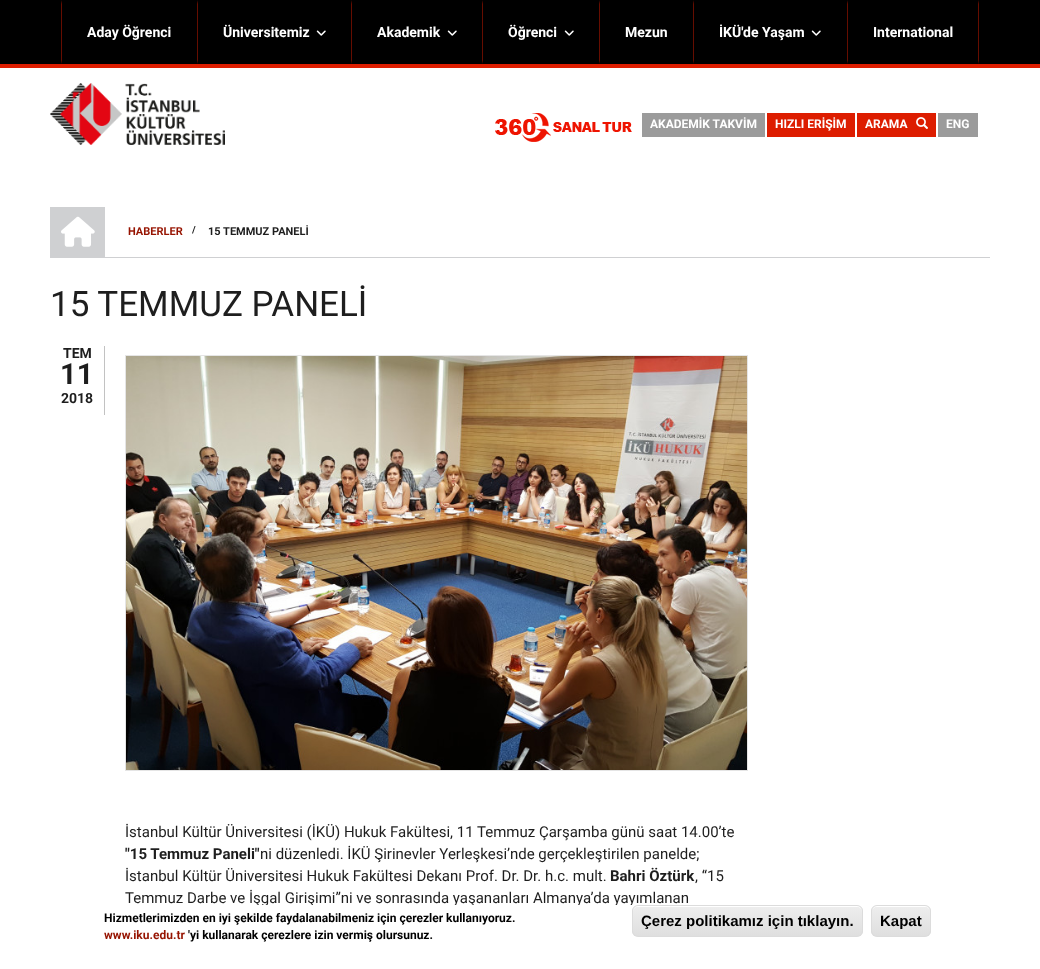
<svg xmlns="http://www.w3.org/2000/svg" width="1040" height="969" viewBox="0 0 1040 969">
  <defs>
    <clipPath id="clip1"><rect x="632" y="905" width="231" height="32" rx="6"/></clipPath>
    <linearGradient id="g1" gradientUnits="userSpaceOnUse" x1="748" y1="906" x2="748" y2="936"><stop offset="0.05" stop-color="rgb(237,237,237)"/><stop offset="1" stop-color="rgb(223,223,223)"/></linearGradient>
    <clipPath id="clip2"><rect x="871" y="905" width="60" height="32" rx="6"/></clipPath>
    <linearGradient id="g2" gradientUnits="userSpaceOnUse" x1="901" y1="906" x2="901" y2="936"><stop offset="0.05" stop-color="rgb(237,237,237)"/><stop offset="1" stop-color="rgb(223,223,223)"/></linearGradient>
  </defs>
  <rect width="100%" height="100%" fill="rgb(255,255,255)"/>
  <rect x="0" y="0" width="1040" height="64" fill="rgb(0,0,0)"/>
  <rect x="0" y="64" width="1040" height="4" fill="rgb(221,29,0)"/>
  <path d="M61 64V0L62 4V60Z" fill="rgb(102,13,0)"/>
  <text x="87" y="37" font-family="Roboto" font-size="14" font-weight="bold" fill="rgb(255,255,255)">Aday Öğrenci</text>
  <path d="M197 64V0L198 4V60Z" fill="rgb(102,13,0)"/>
  <text x="223" y="37" font-family="Roboto" font-size="14" font-weight="bold" fill="rgb(255,255,255)">Üniversitemiz</text>
  <image x="316" y="30" width="10" height="6" href="pic1.png"/>
  <path d="M351 64V0L352 4V60Z" fill="rgb(102,13,0)"/>
  <text x="377" y="37" font-family="Roboto" font-size="14" font-weight="bold" fill="rgb(255,255,255)">Akademik</text>
  <image x="447" y="30" width="10" height="6" href="pic1.png"/>
  <path d="M482 64V0L483 4V60Z" fill="rgb(102,13,0)"/>
  <text x="508" y="37" font-family="Roboto" font-size="14" font-weight="bold" fill="rgb(255,255,255)">Öğrenci</text>
  <image x="564" y="30" width="10" height="6" href="pic1.png"/>
  <path d="M599 64V0L600 4V60Z" fill="rgb(102,13,0)"/>
  <text x="625" y="37" font-family="Roboto" font-size="14" font-weight="bold" fill="rgb(255,255,255)">Mezun</text>
  <path d="M693 64V0L694 4V60Z" fill="rgb(102,13,0)"/>
  <text x="719" y="37" font-family="Roboto" font-size="14" font-weight="bold" fill="rgb(255,255,255)">İKÜ'de Yaşam</text>
  <image x="811" y="30" width="10" height="6" href="pic1.png"/>
  <path d="M979 0V64L978 60V4Z" fill="rgb(102,13,0)"/>
  <path d="M847 64V0L848 4V60Z" fill="rgb(102,13,0)"/>
  <text x="873" y="37" font-family="Roboto" font-size="14" font-weight="bold" fill="rgb(255,255,255)">International</text>
  <image x="50" y="83" width="175" height="62" href="pic2.png"/>
  <image x="495" y="113" width="137" height="29" href="pic3.png"/>
  <rect x="642" y="113" width="123" height="24" fill="rgb(155,155,155)"/>
  <text x="650" y="128" font-family="Roboto" font-size="12" font-weight="bold" fill="rgb(255,255,255)">AKADEMİK TAKVİM</text>
  <rect x="767" y="113" width="88" height="24" fill="rgb(221,29,0)"/>
  <text x="775" y="128" font-family="Roboto" font-size="12" font-weight="bold" fill="rgb(255,255,255)">HIZLI ERİŞİM</text>
  <rect x="857" y="113" width="79" height="24" fill="rgb(221,29,0)"/>
  <text x="865" y="128" font-family="Roboto" font-size="12" font-weight="bold" fill="rgb(255,255,255)">ARAMA</text>
  <image x="916" y="117" width="12" height="12" href="pic4.png"/>
  <rect x="938" y="113" width="40" height="24" fill="rgb(155,155,155)"/>
  <text x="946" y="128" font-family="Roboto" font-size="12" font-weight="bold" fill="rgb(255,255,255)">ENG</text>
  <rect x="50" y="257" width="940" height="1" fill="rgb(207,208,210)"/>
  <rect x="50" y="207" width="55" height="50" fill="rgb(207,208,210)"/>
  <image x="61" y="216" width="34" height="31" href="pic5.png"/>
  <text x="128" y="235" font-family="Roboto" font-size="11" font-weight="bold" fill="rgb(150,19,0)">HABERLER</text>
  <text x="192" y="233" font-family="Roboto" font-size="10" font-weight="bold" fill="rgb(30,30,30)">/</text>
  <text x="208" y="235" font-family="Roboto" font-size="11" font-weight="bold" fill="rgb(30,30,30)">15 TEMMUZ PANELİ</text>
  <text x="50" y="316" font-family="Roboto" font-size="35" fill="rgb(30,30,30)">15 TEMMUZ PANELİ</text>
  <rect x="104" y="346" width="1" height="69" fill="rgb(194,194,194)"/>
  <text x="63" y="358" font-family="Roboto" font-size="14" font-weight="bold" fill="rgb(30,30,30)">TEM</text>
  <text x="60" y="384" font-family="Roboto" font-size="29" font-weight="bold" fill="rgb(30,30,30)">11</text>
  <text x="61" y="403" font-family="Roboto" font-size="14" font-weight="bold" fill="rgb(30,30,30)">2018</text>
  <rect x="125.5" y="355.5" width="622" height="415" fill="none" stroke="rgb(229,229,229)"/>
  <image x="126" y="356" width="621" height="414" href="pic6.png"/>
  <text x="125" y="837" font-family="Roboto" font-size="15" fill="rgb(30,30,30)">İstanbul Kültür Üniversitesi (İKÜ) Hukuk Fakültesi, 11 Temmuz Çarşamba günü saat 14.00’te</text>
  <text x="125" y="859" font-family="Roboto" font-size="15" font-weight="bold" fill="rgb(30,30,30)">"15 Temmuz Paneli"</text>
  <g font-family="Roboto" font-size="15" fill="rgb(30,30,30)">
    <text x="260" y="859">ni düzenledi. İKÜ Şirinevler Yerleşkesi’nde gerçekleştirilen panelde;</text>
    <text x="125" y="881">İstanbul Kültür Üniversitesi Hukuk Fakültesi Dekanı Prof. Dr. Dr. h.c. mult.</text>
  </g>
  <text x="610" y="881" font-family="Roboto" font-size="15" font-weight="bold" fill="rgb(30,30,30)">Bahri Öztürk</text>
  <g font-family="Roboto" font-size="15" fill="rgb(30,30,30)">
    <text x="695" y="881">, “15</text>
    <text x="125" y="903">Temmuz Darbe ve İşgal Girişimi”ni ve sonrasında yaşananları Almanya’da yayımlanan</text>
  </g>
  <rect x="256" y="905" width="376" height="2" fill="rgb(255,255,255)"/>
  <text x="104" y="922" font-family="Roboto" font-size="12" font-weight="bold" fill="rgb(0,0,0)">Hizmetlerimizden en iyi şekilde faydalanabilmeniz için çerezler kullanıyoruz.</text>
  <text x="104" y="939" font-family="Roboto" font-size="12" font-weight="bold" fill="rgb(150,19,0)">www.iku.edu.tr</text>
  <text x="188" y="939" font-family="Roboto" font-size="12" font-weight="bold" fill="rgb(0,0,0)">'yi kullanarak çerezlere izin vermiş olursunuz.</text>
  <g clip-path="url(#clip1)">
    <rect x="632" y="906" width="231" height="30" fill="url(#g1)"/>
  </g>
  <path d="M638 907H857C860 907 862 909 862 912V911C862 908 860 906 857 906H638C635 906 633 908 633 911V912C633 909 635 907 638 907Z" fill="rgb(255,255,255)"/>
  <rect x="632.5" y="905.5" width="230" height="31" rx="5.5" fill="none" stroke="rgb(220,220,220)"/>
  <text x="641" y="926" font-family="Liberation Sans" font-size="15" font-weight="bold" fill="rgb(0,0,0)">Çerez politikamız için tıklayın.</text>
  <g clip-path="url(#clip2)">
    <rect x="871" y="906" width="60" height="30" fill="url(#g2)"/>
  </g>
  <path d="M877 907H925C928 907 930 909 930 912C930 904 923 906 917 906H885C879 906 872 904 872 912C872 909 874 907 877 907Z" fill="rgb(255,255,255)"/>
  <rect x="871.5" y="905.5" width="59" height="31" rx="5.5" fill="none" stroke="rgb(220,220,220)"/>
  <text x="880" y="926" font-family="Liberation Sans" font-size="15" font-weight="bold" fill="rgb(0,0,0)">Kapat</text>
</svg>
